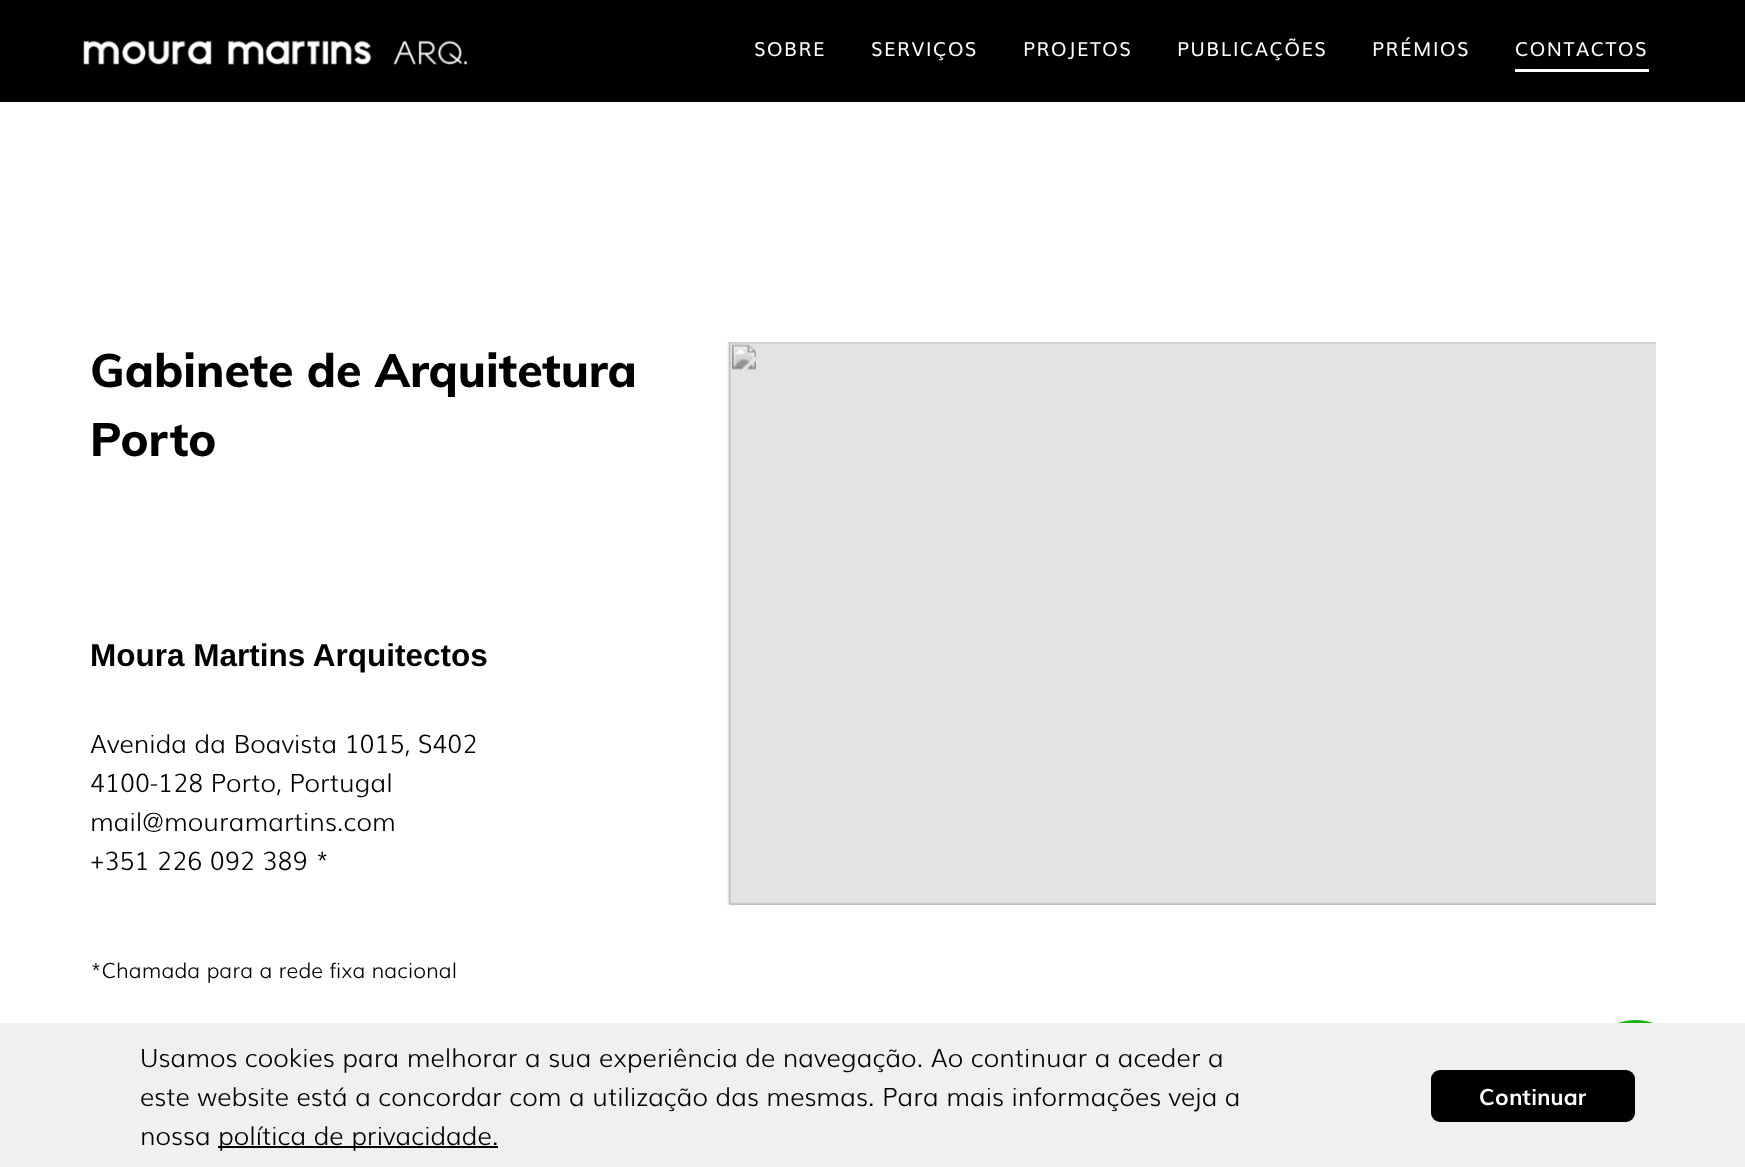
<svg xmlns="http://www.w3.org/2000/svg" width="1745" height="1167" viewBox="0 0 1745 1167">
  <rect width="100%" height="100%" fill="rgb(255,255,255)"/>
  <rect x="0" y="0" width="1745" height="102" fill="rgb(0,0,0)"/>
  <image x="83" y="40" width="384" height="25" href="pic1.png"/>
  <g font-family="Muli" font-size="19.5" letter-spacing="1.5" fill="rgb(255,255,255)">
    <text x="754" y="56">SOBRE</text>
    <text x="871" y="56">SERVIÇOS</text>
    <text x="1023" y="56">PROJETOS</text>
    <text x="1177" y="56">PUBLICAÇÕES</text>
    <text x="1372" y="56">PRÉMIOS</text>
  </g>
  <rect x="1515" y="69" width="134" height="3" fill="rgb(255,255,255)"/>
  <text x="1515" y="56" font-family="Muli" font-size="19.5" letter-spacing="1.5" fill="rgb(255,255,255)">CONTACTOS</text>
  <g font-family="Muli" font-size="46.5" font-weight="800" fill="rgb(0,0,0)">
    <text>
      <tspan x="90" y="387">Gabinete de Arquitetura</tspan>
      <tspan x="90" y="456">Porto</tspan>
    </text>
  </g>
  <text x="90" y="666" font-family="Liberation Sans" font-size="31.5" font-weight="bold" fill="rgb(0,0,0)">Moura Martins Arquitectos</text>
  <g font-family="Muli" font-size="25.5" font-weight="300" fill="rgb(0,0,0)">
    <text>
      <tspan x="90" y="753">Avenida da Boavista 1015, S402</tspan>
      <tspan x="90" y="792">4100-128 Porto, Portugal</tspan>
      <tspan x="90" y="831">mail@mouramartins.com</tspan>
      <tspan x="90" y="870">+351 226 092 389 *</tspan>
    </text>
  </g>
  <text x="90" y="978" font-family="Muli" font-size="21" font-weight="300" fill="rgb(0,0,0)">*Chamada para a rede fixa nacional</text>
  <image x="727" y="342" width="929" height="563" href="pic2.png"/>
  <circle cx="1635.5" cy="1072.5" r="52.5" fill="rgb(24,179,11)"/>
  <rect x="0" y="1023" width="1745" height="144" fill="rgb(240,240,240)"/>
  <g font-family="Muli" font-size="25.5" font-weight="300" fill="rgb(0,0,0)">
    <text>
      <tspan x="140" y="1067">Usamos cookies para melhorar a sua experiência de navegação. Ao continuar a aceder a</tspan>
      <tspan x="140" y="1106">este website está a concordar com a utilização das mesmas. Para mais informações veja a</tspan>
      <tspan x="140" y="1145">nossa</tspan>
    </text>
  </g>
  <rect x="218" y="1146" width="280" height="2" fill="rgb(0,0,0)"/>
  <text x="218" y="1145" font-family="Muli" font-size="25.5" font-weight="300" fill="rgb(0,0,0)">política de privacidade.</text>
  <rect x="1432.5" y="1071.5" width="201" height="49" rx="7.5" fill="rgb(0,0,0)" stroke="rgb(0,0,0)" stroke-width="3"/>
  <text x="1479" y="1105" font-family="Muli" font-size="22.5" font-weight="bold" fill="rgb(255,255,255)">Continuar</text>
</svg>
